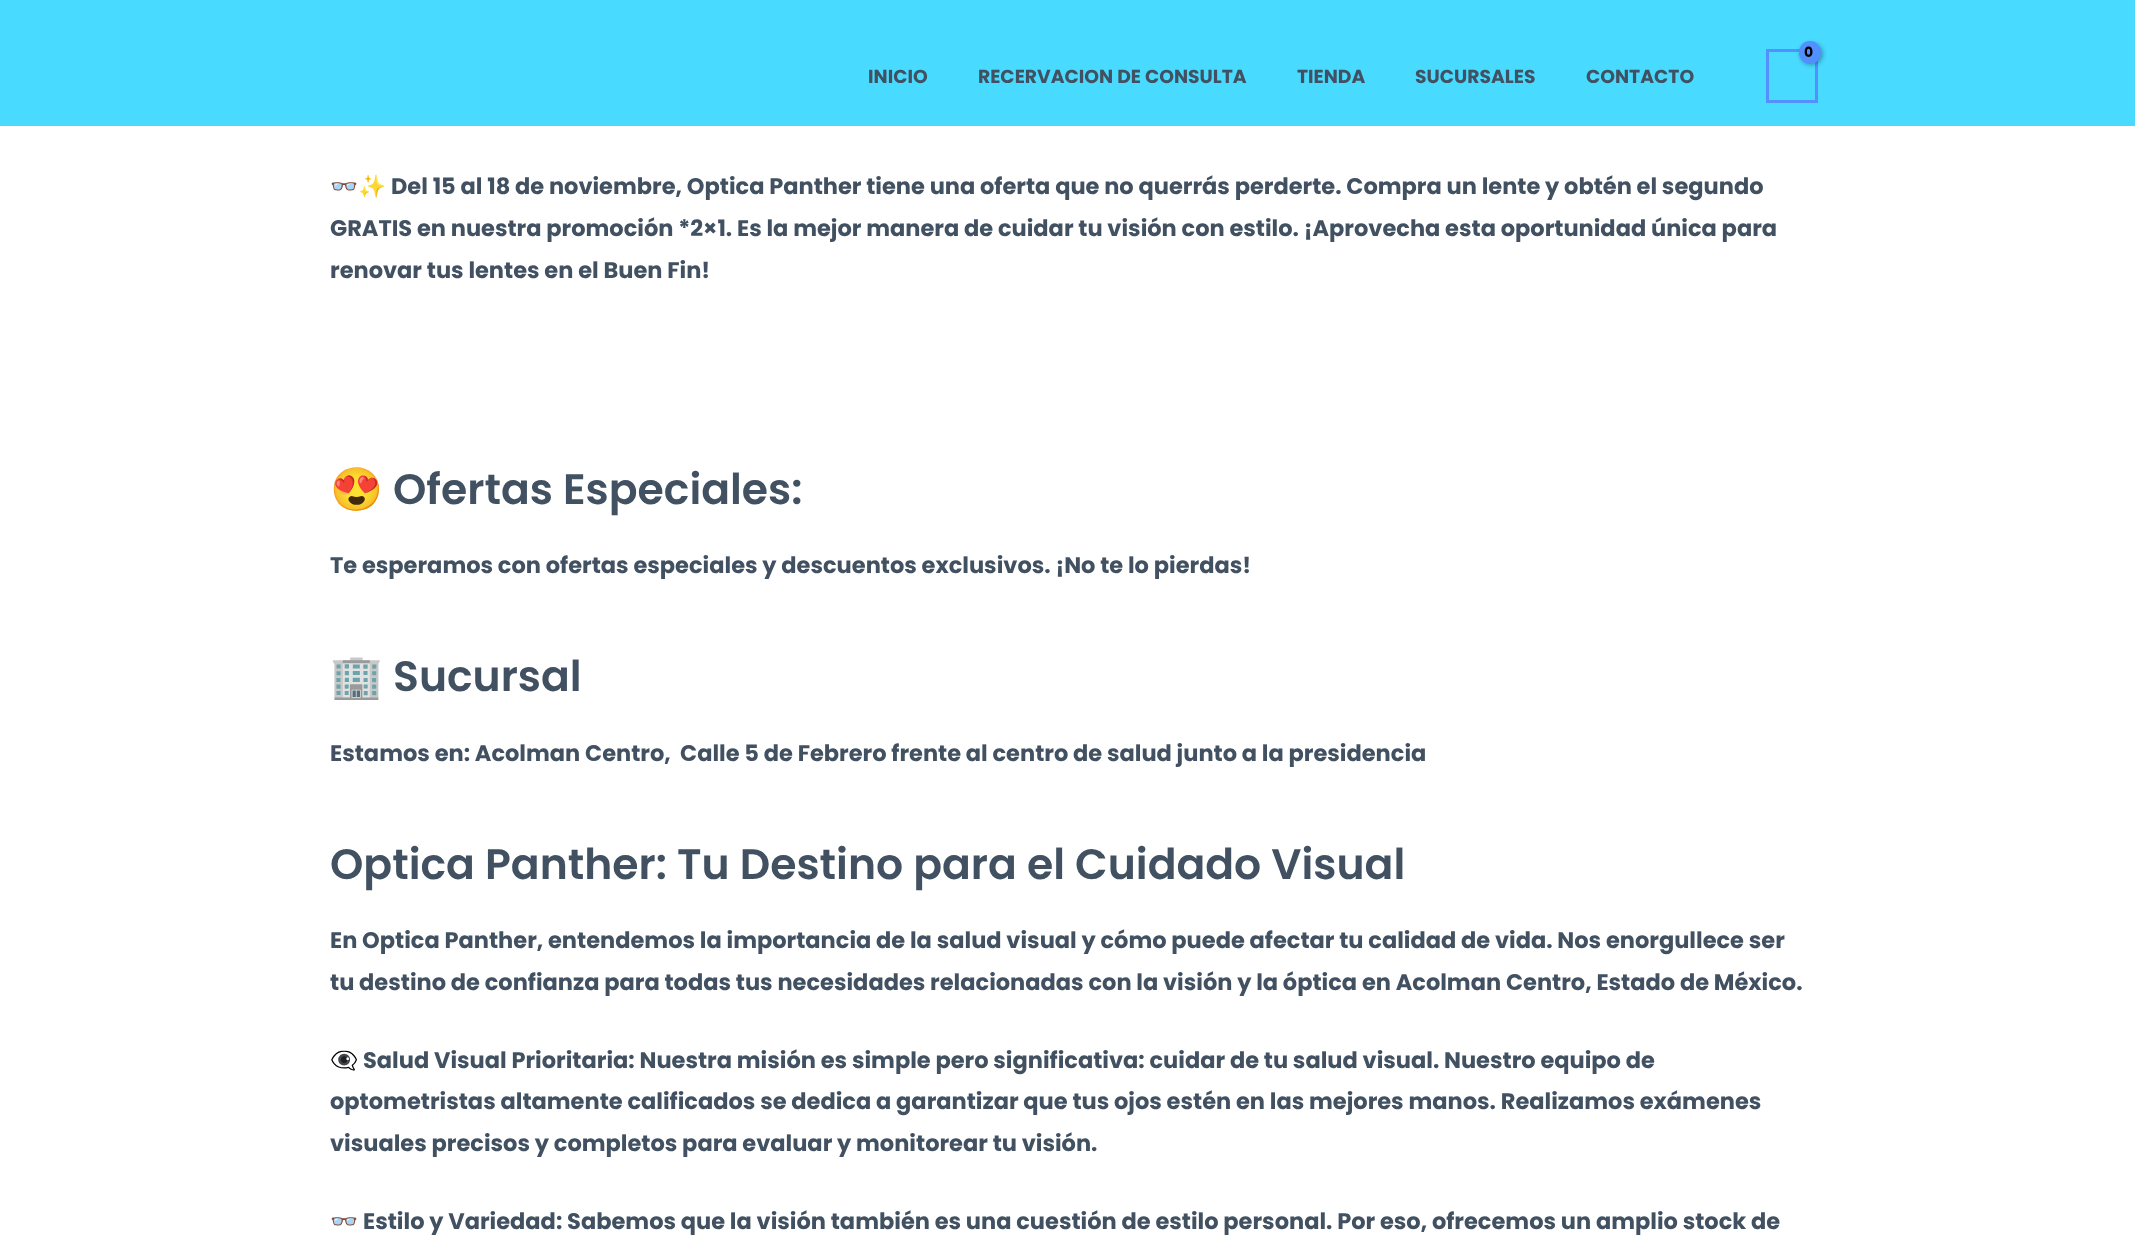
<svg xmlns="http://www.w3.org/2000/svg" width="2135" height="1253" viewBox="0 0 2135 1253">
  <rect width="100%" height="100%" fill="rgb(255,255,255)"/>
  <rect x="0" y="0" width="2135" height="126" fill="rgb(72,218,255)"/>
  <rect x="1767.5" y="50.5" width="49" height="51" fill="none" stroke="rgb(82,144,255)" stroke-width="3"/>
  <rect x="1800" y="43" width="23" height="22" rx="11" fill="rgba(0,0,0,0.3)" filter="blur(2px)"/>
  <rect x="1799" y="41" width="22" height="23" rx="11" fill="rgb(82,144,255)"/>
  <text x="1804" y="57" font-family="Poppins" font-size="14" font-weight="bold" letter-spacing="-1" fill="rgb(0,0,0)">0</text>
  <g font-family="Poppins" font-size="18.75" font-weight="bold" fill="rgb(65,81,97)">
    <text x="868" y="83">INICIO</text>
    <text x="978" y="83">RECERVACION DE CONSULTA</text>
    <text x="1297" y="83">TIENDA</text>
    <text x="1415" y="83">SUCURSALES</text>
    <text x="1586" y="83">CONTACTO</text>
  </g>
  <text x="330" y="194" font-family="Noto Color Emoji" font-size="22.5" font-weight="bold" fill="rgb(65,81,97)">👓✨</text>
  <g font-family="Poppins" font-size="22.5" font-weight="bold" fill="rgb(65,81,97)">
    <text x="391" y="194">Del 15 al 18 de noviembre, Optica Panther tiene una oferta que no querrás perderte. Compra un lente y obtén el segundo</text>
    <text>
      <tspan x="330" y="236">GRATIS en nuestra promoción *2×1. Es la mejor manera de cuidar tu visión con estilo. ¡Aprovecha esta oportunidad única para</tspan>
      <tspan x="330" y="278">renovar tus lentes en el Buen Fin!</tspan>
    </text>
  </g>
  <text x="330" y="504" font-family="Noto Color Emoji" font-size="42.5" font-weight="bold" fill="rgb(65,81,97)">😍</text>
  <text x="393" y="504" font-family="Poppins" font-size="42.5" font-weight="600" fill="rgb(65,81,97)">Ofertas Especiales:</text>
  <text x="330" y="573" font-family="Poppins" font-size="22.5" font-weight="bold" fill="rgb(65,81,97)">Te esperamos con ofertas especiales y descuentos exclusivos. ¡No te lo pierdas!</text>
  <text x="330" y="691" font-family="Noto Color Emoji" font-size="42.5" font-weight="bold" fill="rgb(65,81,97)">🏢</text>
  <text x="393" y="691" font-family="Poppins" font-size="42.5" font-weight="600" fill="rgb(65,81,97)">Sucursal</text>
  <g font-family="Poppins" font-size="22.5" font-weight="bold" fill="rgb(65,81,97)">
    <text x="330" y="761">Estamos en: Acolman Centro,</text>
    <text x="680" y="761">Calle 5 de Febrero frente al centro de salud junto a la presidencia</text>
  </g>
  <text x="330" y="879" font-family="Poppins" font-size="42.5" font-weight="600" fill="rgb(65,81,97)">Optica Panther: Tu Destino para el Cuidado Visual</text>
  <g font-family="Poppins" font-size="22.5" font-weight="bold" fill="rgb(65,81,97)">
    <text>
      <tspan x="330" y="948">En Optica Panther, entendemos la importancia de la salud visual y cómo puede afectar tu calidad de vida. Nos enorgullece ser</tspan>
      <tspan x="330" y="990">tu destino de confianza para todas tus necesidades relacionadas con la visión y la óptica en Acolman Centro, Estado de México.</tspan>
    </text>
  </g>
  <text x="330" y="1068" font-family="Noto Color Emoji" font-size="22.5" font-weight="bold" fill="rgb(65,81,97)">👁️‍🗨️</text>
  <g font-family="Poppins" font-size="22.5" font-weight="bold" fill="rgb(65,81,97)">
    <text x="363" y="1068">Salud Visual Prioritaria: Nuestra misión es simple pero significativa: cuidar de tu salud visual. Nuestro equipo de</text>
    <text>
      <tspan x="330" y="1109">optometristas altamente calificados se dedica a garantizar que tus ojos estén en las mejores manos. Realizamos exámenes</tspan>
      <tspan x="330" y="1151">visuales precisos y completos para evaluar y monitorear tu visión.</tspan>
    </text>
  </g>
  <text x="330" y="1229" font-family="Noto Color Emoji" font-size="22.5" font-weight="bold" fill="rgb(65,81,97)">👓</text>
  <text x="363" y="1229" font-family="Poppins" font-size="22.5" font-weight="bold" fill="rgb(65,81,97)">Estilo y Variedad: Sabemos que la visión también es una cuestión de estilo personal. Por eso, ofrecemos un amplio stock de</text>
</svg>
